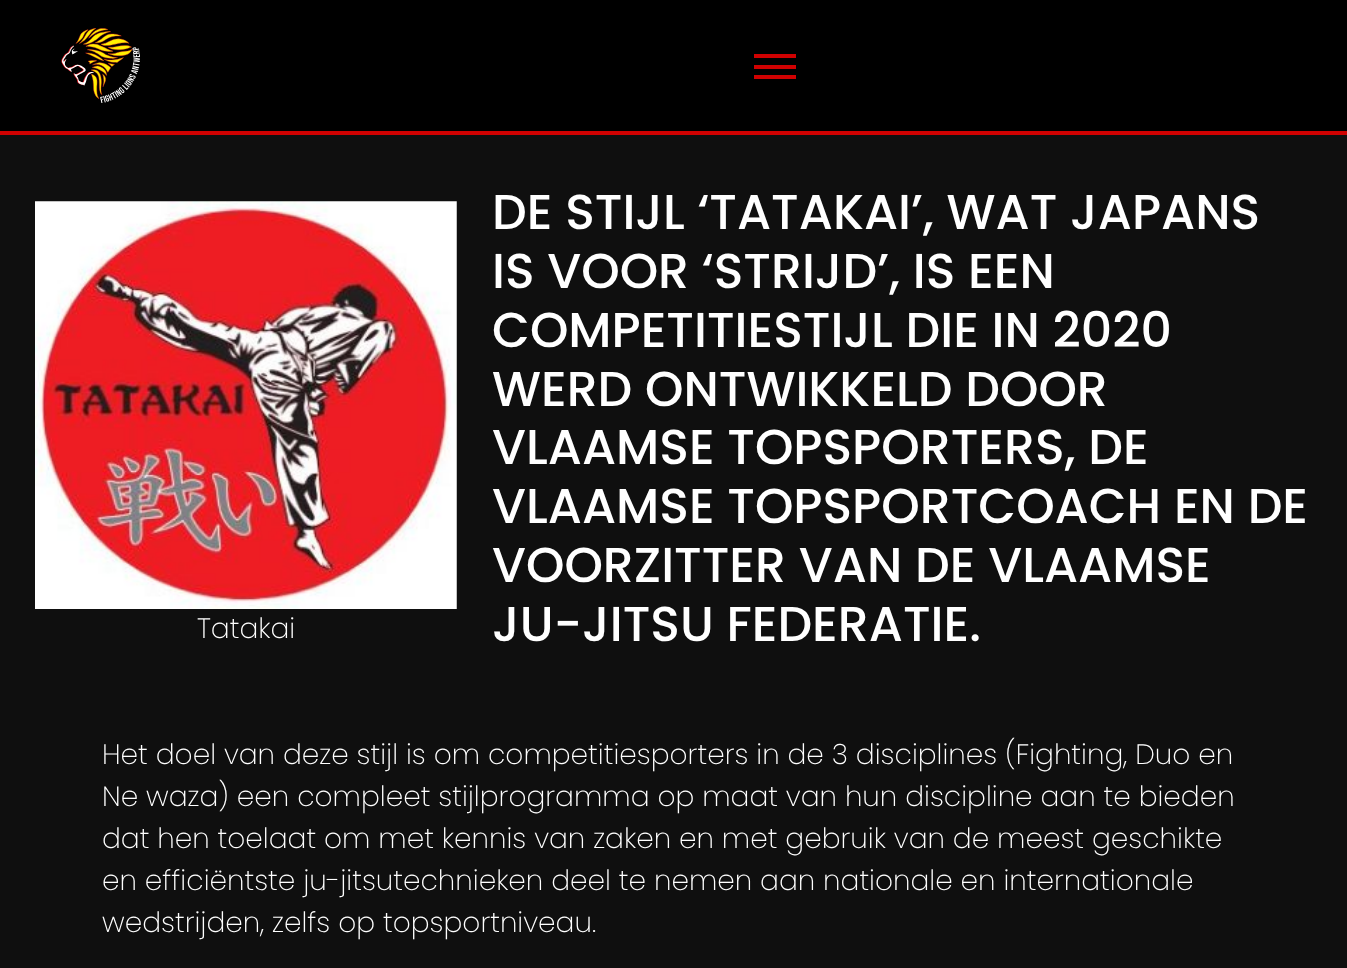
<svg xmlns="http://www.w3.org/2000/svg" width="1347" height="968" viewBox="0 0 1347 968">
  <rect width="100%" height="100%" fill="rgb(15,15,15)"/>
  <rect x="0" y="131" width="1347" height="4" fill="rgb(208,1,1)"/>
  <rect x="0" y="0" width="1347" height="131" fill="rgb(0,0,0)"/>
  <image x="61" y="28" width="79" height="75" href="pic1.png"/>
  <rect x="754" y="65" width="42" height="4" fill="rgb(208,1,1)"/>
  <rect x="754" y="54" width="42" height="4" fill="rgb(208,1,1)"/>
  <rect x="754" y="75" width="42" height="4" fill="rgb(208,1,1)"/>
  <image x="35" y="201" width="422" height="408" href="pic2.png"/>
  <text x="197" y="638" font-family="Poppins" font-size="28" font-weight="200" fill="rgb(255,255,255)">Tatakai</text>
  <g font-family="Poppins" font-size="49" font-weight="500" fill="rgb(255,255,255)">
    <text>
      <tspan x="492" y="229">DE STIJL ‘TATAKAI’, WAT JAPANS</tspan>
      <tspan x="492" y="288">IS VOOR ‘STRIJD’, IS EEN</tspan>
      <tspan x="492" y="347">COMPETITIESTIJL DIE IN 2020</tspan>
      <tspan x="492" y="406">WERD ONTWIKKELD DOOR</tspan>
      <tspan x="492" y="464">VLAAMSE TOPSPORTERS, DE</tspan>
      <tspan x="492" y="523">VLAAMSE TOPSPORTCOACH EN DE</tspan>
      <tspan x="492" y="582">VOORZITTER VAN DE VLAAMSE</tspan>
      <tspan x="492" y="641">JU-JITSU FEDERATIE.</tspan>
    </text>
  </g>
  <g font-family="Poppins" font-size="28" font-weight="200" fill="rgb(255,255,255)">
    <text>
      <tspan x="102" y="764">Het doel van deze stijl is om competitiesporters in de 3 disciplines (Fighting, Duo en</tspan>
      <tspan x="102" y="806">Ne waza) een compleet stijlprogramma op maat van hun discipline aan te bieden</tspan>
      <tspan x="102" y="848">dat hen toelaat om met kennis van zaken en met gebruik van de meest geschikte</tspan>
      <tspan x="102" y="890">en efficiëntste ju-jitsutechnieken deel te nemen aan nationale en internationale</tspan>
      <tspan x="102" y="932">wedstrijden, zelfs op topsportniveau.</tspan>
    </text>
  </g>
</svg>
